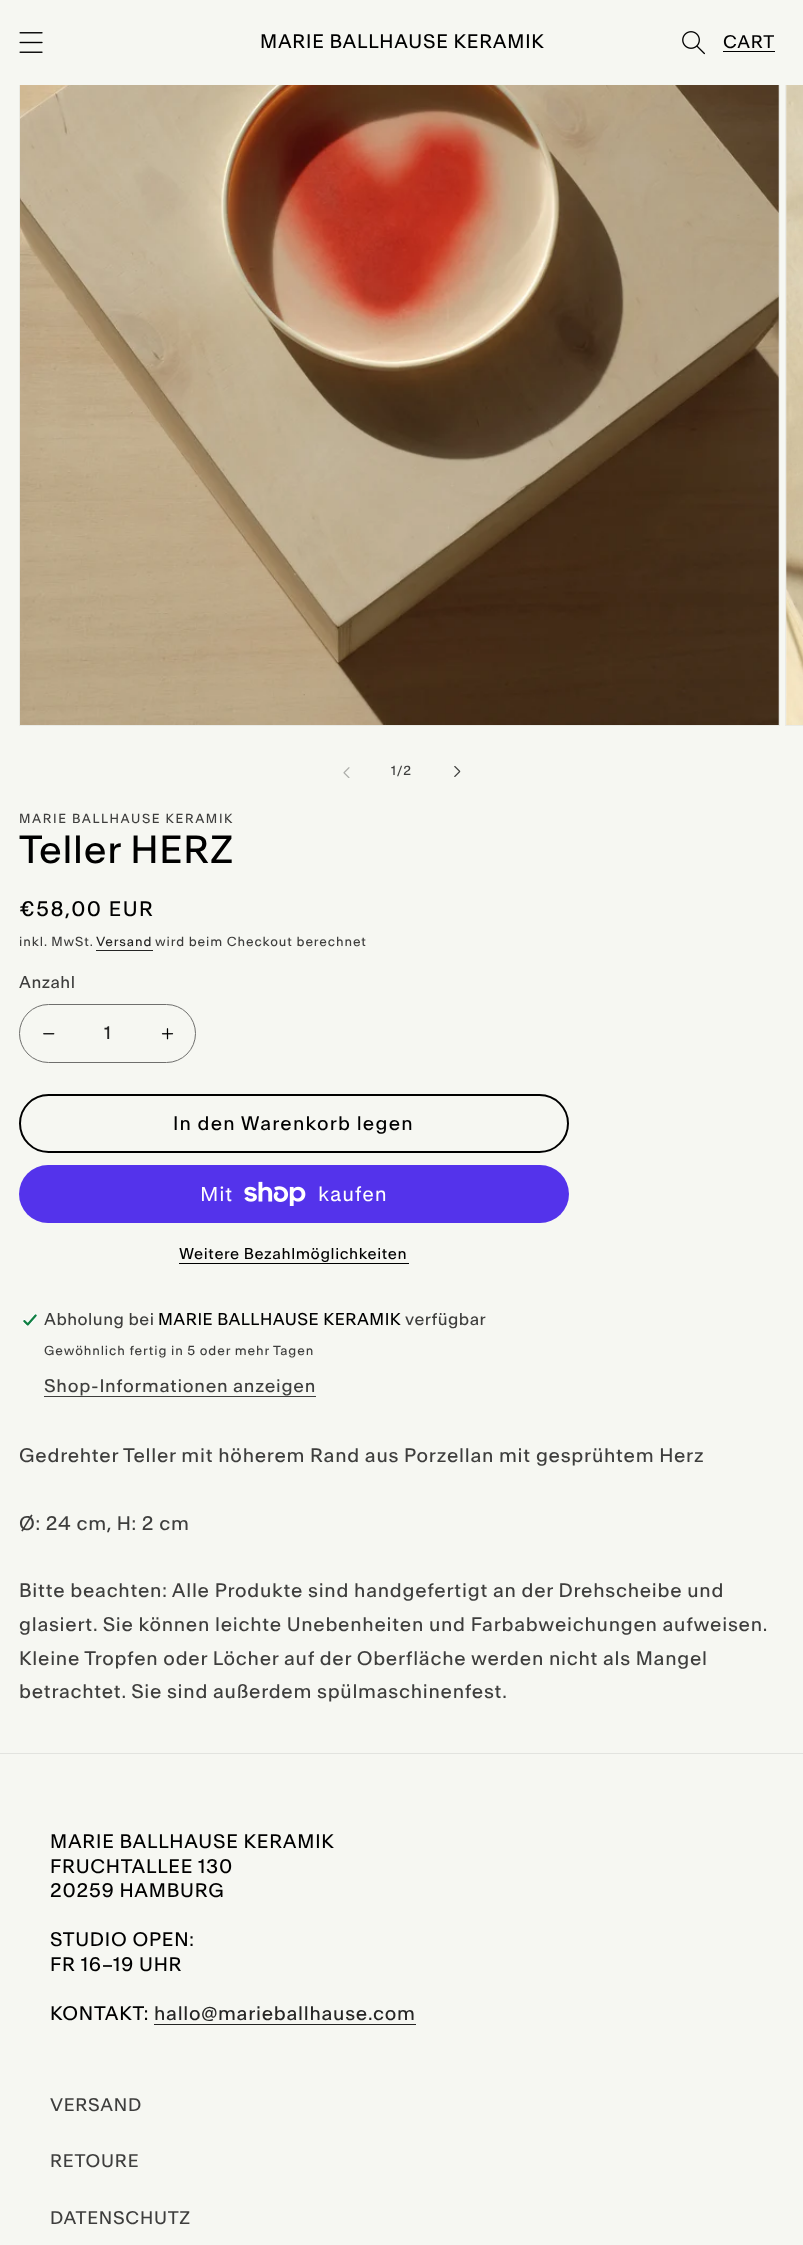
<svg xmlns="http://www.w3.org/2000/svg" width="803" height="2245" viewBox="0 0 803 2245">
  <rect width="100%" height="100%" fill="rgb(246,247,242)"/>
  <rect x="19.5" y="-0.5" width="760" height="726" fill="none" stroke="rgb(234,235,230)"/>
  <rect x="785.5" y="-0.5" width="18" height="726" fill="none" stroke="rgb(234,235,230)"/>
  <rect x="19" y="0" width="767" height="85" fill="rgb(246,247,242)"/>
  <image x="19" y="32" width="24" height="21" href="pic1.png"/>
  <text x="260" y="48" font-family="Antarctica" font-size="18.75" letter-spacing="0.75" fill="rgb(0,0,0)">MARIE BALLHAUSE KERAMIK</text>
  <image x="682" y="31" width="23" height="24" href="pic2.png"/>
  <text x="723" y="48" font-family="Antarctica" font-size="17.5" letter-spacing="0.75" fill="rgb(0,0,0)">CART</text>
  <rect x="723" y="51" width="52" height="1" fill="rgb(0,0,0)"/>
  <image x="20" y="85" width="759" height="640" href="pic3.png"/>
  <image x="786" y="85" width="17" height="640" href="pic4.png"/>
  <image x="343" y="767" width="7" height="11" href="pic5.png"/>
  <text x="391" y="775" font-family="Antarctica" font-size="12.5" letter-spacing="0.9" fill="rgb(62,62,61)">1/2</text>
  <image x="454" y="766" width="7" height="11" href="pic6.png"/>
  <text x="19" y="823" font-family="Antarctica" font-size="12.5" letter-spacing="1.6" fill="rgb(62,62,61)">MARIE BALLHAUSE KERAMIK</text>
  <text x="19" y="863" font-family="Antarctica" font-size="37.5" letter-spacing="0.75" fill="rgb(0,0,0)">Teller HERZ</text>
  <text x="19" y="916" font-family="Antarctica" font-size="20" letter-spacing="1.6" fill="rgb(0,0,0)">€58,00 EUR</text>
  <text x="19" y="946" font-family="Antarctica" font-size="12.5" letter-spacing="0.9" fill="rgb(62,62,61)">inkl. MwSt.</text>
  <text x="96" y="946" font-family="Antarctica" font-size="12.5" letter-spacing="0.9" fill="rgb(37,37,36)">Versand</text>
  <rect x="96" y="950" width="57" height="1" fill="rgb(37,37,36)"/>
  <text x="155" y="946" font-family="Antarctica" font-size="12.5" letter-spacing="0.9" fill="rgb(62,62,61)">wird beim Checkout berechnet</text>
  <text x="19" y="988" font-family="Antarctica" font-size="16.25" letter-spacing="0.5" fill="rgb(62,62,61)">Anzahl</text>
  <image x="43" y="1033" width="12" height="2" href="pic7.png"/>
  <image x="161" y="1028" width="13" height="12" href="pic8.png"/>
  <rect x="19.5" y="1004.5" width="176" height="58" rx="29" fill="none" stroke="rgb(111,111,109)"/>
  <text x="104" y="1039" font-family="Antarctica" font-size="17.5" fill="rgb(37,37,36)">1</text>
  <rect x="20" y="1095" width="548" height="57" rx="28.5" fill="none" stroke="rgb(0,0,0)" stroke-width="2"/>
  <text x="173" y="1130" font-family="Antarctica" font-size="18.75" letter-spacing="1.25" fill="rgb(0,0,0)">In den Warenkorb legen</text>
  <rect x="19" y="1165" width="550" height="58" rx="29" fill="rgb(84,51,235)"/>
  <text x="200" y="1201" font-family="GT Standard" font-size="20" letter-spacing="0.75" fill="rgb(255,255,255)">Mit</text>
  <image x="244" y="1181" width="62" height="25" href="pic9.png"/>
  <text x="318" y="1201" font-family="GT Standard" font-size="20" letter-spacing="0.75" fill="rgb(255,255,255)">kaufen</text>
  <text x="179" y="1259" font-family="Antarctica" font-size="15" letter-spacing="0.6" fill="rgb(0,0,0)">Weitere Bezahlmöglichkeiten</text>
  <rect x="179" y="1263" width="230" height="1" fill="rgb(0,0,0)"/>
  <image x="22" y="1313" width="16" height="13" href="pic10.png"/>
  <text x="44" y="1325" font-family="Antarctica" font-size="16.25" letter-spacing="0.5" fill="rgb(62,62,61)">Abholung bei</text>
  <text x="158" y="1325" font-family="Antarctica" font-size="16.25" letter-spacing="0.5" fill="rgb(0,0,0)">MARIE BALLHAUSE KERAMIK</text>
  <text x="405" y="1325" font-family="Antarctica" font-size="16.25" letter-spacing="0.5" fill="rgb(62,62,61)">verfügbar</text>
  <text x="44" y="1355" font-family="Antarctica" font-size="12.5" letter-spacing="0.9" fill="rgb(62,62,61)">Gewöhnlich fertig in 5 oder mehr Tagen</text>
  <text x="44" y="1392" font-family="Antarctica" font-size="17.5" letter-spacing="0.75" fill="rgb(62,62,61)">Shop-Informationen anzeigen</text>
  <rect x="44" y="1396" width="272" height="1" fill="rgb(62,62,61)"/>
  <g font-family="Antarctica" font-size="18.75" letter-spacing="0.75" fill="rgb(62,62,61)">
    <text x="19" y="1462">Gedrehter Teller mit höherem Rand aus Porzellan mit gesprühtem Herz</text>
    <text x="19" y="1530">Ø: 24 cm, H: 2 cm</text>
    <text>
      <tspan x="19" y="1597">Bitte beachten: Alle Produkte sind handgefertigt an der Drehscheibe und</tspan>
      <tspan x="19" y="1631">glasiert. Sie können leichte Unebenheiten und Farbabweichungen aufweisen.</tspan>
      <tspan x="19" y="1665">Kleine Tropfen oder Löcher auf der Oberfläche werden nicht als Mangel</tspan>
      <tspan x="19" y="1698">betrachtet. Sie sind außerdem spülmaschinenfest.</tspan>
    </text>
  </g>
  <rect x="0" y="1753" width="803" height="1" fill="rgb(226,227,223)"/>
  <g font-family="Antarctica" font-size="18.75" letter-spacing="0.75" fill="rgb(0,0,0)">
    <text>
      <tspan x="50" y="1848">MARIE BALLHAUSE KERAMIK</tspan>
      <tspan x="50" y="1873">FRUCHTALLEE 130</tspan>
      <tspan x="50" y="1897">20259 HAMBURG</tspan>
    </text>
    <text>
      <tspan x="50" y="1946">STUDIO OPEN:</tspan>
      <tspan x="50" y="1971">FR 16–19 UHR</tspan>
    </text>
    <text x="50" y="2020">KONTAKT:</text>
  </g>
  <text x="154" y="2020" font-family="Antarctica" font-size="18.75" letter-spacing="0.75" fill="rgb(37,37,36)">hallo@marieballhause.com</text>
  <rect x="154" y="2024" width="262" height="1" fill="rgb(37,37,36)"/>
  <g font-family="Antarctica" font-size="17.5" letter-spacing="0.75" fill="rgb(62,62,61)">
    <text x="50" y="2111">VERSAND</text>
    <text x="50" y="2167">RETOURE</text>
    <text x="50" y="2224">DATENSCHUTZ</text>
  </g>
</svg>
